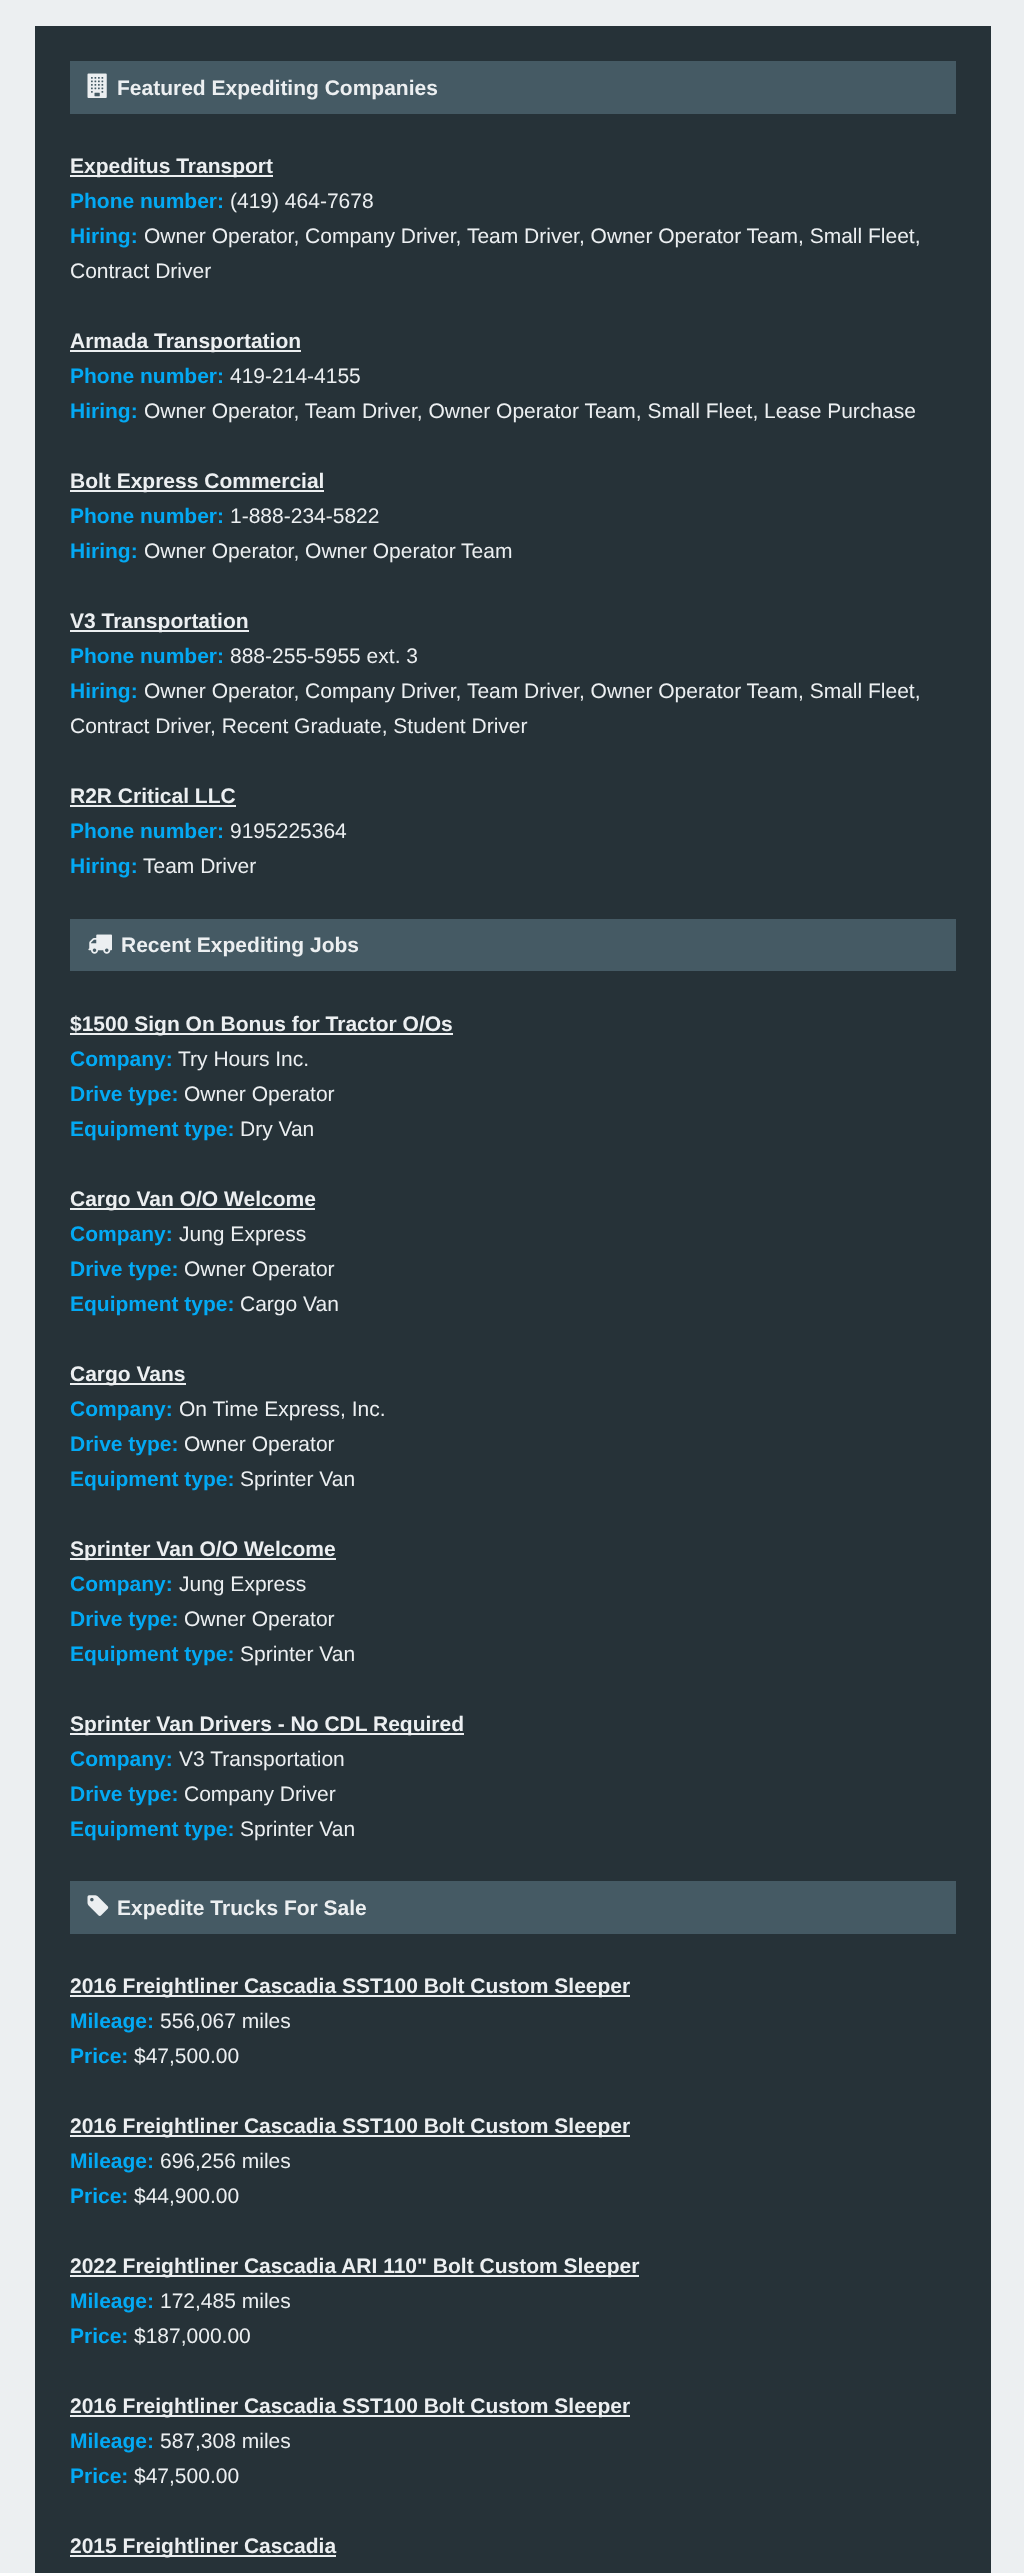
<svg xmlns="http://www.w3.org/2000/svg" width="1024" height="2573" viewBox="0 0 1024 2573">
  <rect width="100%" height="100%" fill="rgb(236,239,241)"/>
  <rect x="35" y="26" width="956" height="2547" fill="rgb(38,50,56)"/>
  <rect x="70" y="61" width="886" height="53" fill="rgb(69,90,100)"/>
  <image x="87" y="73" width="20" height="25" href="pic1.png"/>
  <text x="117" y="95" font-family="Liberation Sans" font-size="21" font-weight="bold" fill="rgb(236,239,241)">Featured Expediting Companies</text>
  <rect x="70" y="175" width="203" height="2" fill="rgb(236,239,241)"/>
  <text x="70" y="173" font-family="Liberation Sans" font-size="21" font-weight="bold" fill="rgb(236,239,241)">Expeditus Transport</text>
  <text x="70" y="208" font-family="Liberation Sans" font-size="21" font-weight="bold" fill="rgb(3,169,244)">Phone number:</text>
  <text x="230" y="208" font-family="Liberation Sans" font-size="21" fill="rgb(236,239,241)">(419) 464-7678</text>
  <text x="70" y="243" font-family="Liberation Sans" font-size="21" font-weight="bold" fill="rgb(3,169,244)">Hiring:</text>
  <g font-family="Liberation Sans" font-size="21" fill="rgb(236,239,241)">
    <text x="144" y="243">Owner Operator, Company Driver, Team Driver, Owner Operator Team, Small Fleet,</text>
    <text x="70" y="278">Contract Driver</text>
  </g>
  <rect x="70" y="350" width="231" height="2" fill="rgb(236,239,241)"/>
  <text x="70" y="348" font-family="Liberation Sans" font-size="21" font-weight="bold" fill="rgb(236,239,241)">Armada Transportation</text>
  <text x="70" y="383" font-family="Liberation Sans" font-size="21" font-weight="bold" fill="rgb(3,169,244)">Phone number:</text>
  <text x="230" y="383" font-family="Liberation Sans" font-size="21" fill="rgb(236,239,241)">419-214-4155</text>
  <text x="70" y="418" font-family="Liberation Sans" font-size="21" font-weight="bold" fill="rgb(3,169,244)">Hiring:</text>
  <text x="144" y="418" font-family="Liberation Sans" font-size="21" fill="rgb(236,239,241)">Owner Operator, Team Driver, Owner Operator Team, Small Fleet, Lease Purchase</text>
  <rect x="70" y="490" width="254" height="2" fill="rgb(236,239,241)"/>
  <text x="70" y="488" font-family="Liberation Sans" font-size="21" font-weight="bold" fill="rgb(236,239,241)">Bolt Express Commercial</text>
  <text x="70" y="523" font-family="Liberation Sans" font-size="21" font-weight="bold" fill="rgb(3,169,244)">Phone number:</text>
  <text x="230" y="523" font-family="Liberation Sans" font-size="21" fill="rgb(236,239,241)">1-888-234-5822</text>
  <text x="70" y="558" font-family="Liberation Sans" font-size="21" font-weight="bold" fill="rgb(3,169,244)">Hiring:</text>
  <text x="144" y="558" font-family="Liberation Sans" font-size="21" fill="rgb(236,239,241)">Owner Operator, Owner Operator Team</text>
  <rect x="70" y="630" width="179" height="2" fill="rgb(236,239,241)"/>
  <text x="70" y="628" font-family="Liberation Sans" font-size="21" font-weight="bold" fill="rgb(236,239,241)">V3 Transportation</text>
  <text x="70" y="663" font-family="Liberation Sans" font-size="21" font-weight="bold" fill="rgb(3,169,244)">Phone number:</text>
  <text x="230" y="663" font-family="Liberation Sans" font-size="21" fill="rgb(236,239,241)">888-255-5955 ext. 3</text>
  <text x="70" y="698" font-family="Liberation Sans" font-size="21" font-weight="bold" fill="rgb(3,169,244)">Hiring:</text>
  <g font-family="Liberation Sans" font-size="21" fill="rgb(236,239,241)">
    <text x="144" y="698">Owner Operator, Company Driver, Team Driver, Owner Operator Team, Small Fleet,</text>
    <text x="70" y="733">Contract Driver, Recent Graduate, Student Driver</text>
  </g>
  <text x="70" y="803" font-family="Liberation Sans" font-size="21" font-weight="bold" fill="rgb(236,239,241)">R2R Critical LLC</text>
  <rect x="70" y="805" width="166" height="2" fill="rgb(236,239,241)"/>
  <text x="70" y="838" font-family="Liberation Sans" font-size="21" font-weight="bold" fill="rgb(3,169,244)">Phone number:</text>
  <text x="230" y="838" font-family="Liberation Sans" font-size="21" fill="rgb(236,239,241)">9195225364</text>
  <text x="70" y="873" font-family="Liberation Sans" font-size="21" font-weight="bold" fill="rgb(3,169,244)">Hiring:</text>
  <text x="143" y="873" font-family="Liberation Sans" font-size="21" fill="rgb(236,239,241)">Team Driver</text>
  <rect x="70" y="919" width="886" height="52" fill="rgb(69,90,100)"/>
  <image x="88" y="934" width="24" height="20" href="pic2.png"/>
  <text x="121" y="952" font-family="Liberation Sans" font-size="21" font-weight="bold" fill="rgb(236,239,241)">Recent Expediting Jobs</text>
  <rect x="70" y="1033" width="383" height="2" fill="rgb(236,239,241)"/>
  <text x="70" y="1031" font-family="Liberation Sans" font-size="21" font-weight="bold" fill="rgb(236,239,241)">$1500 Sign On Bonus for Tractor O/Os</text>
  <text x="70" y="1066" font-family="Liberation Sans" font-size="21" font-weight="bold" fill="rgb(3,169,244)">Company:</text>
  <text x="178" y="1066" font-family="Liberation Sans" font-size="21" fill="rgb(236,239,241)">Try Hours Inc.</text>
  <text x="70" y="1101" font-family="Liberation Sans" font-size="21" font-weight="bold" fill="rgb(3,169,244)">Drive type:</text>
  <text x="184" y="1101" font-family="Liberation Sans" font-size="21" fill="rgb(236,239,241)">Owner Operator</text>
  <text x="70" y="1136" font-family="Liberation Sans" font-size="21" font-weight="bold" fill="rgb(3,169,244)">Equipment type:</text>
  <text x="240" y="1136" font-family="Liberation Sans" font-size="21" fill="rgb(236,239,241)">Dry Van</text>
  <rect x="70" y="1208" width="245" height="2" fill="rgb(236,239,241)"/>
  <text x="70" y="1206" font-family="Liberation Sans" font-size="21" font-weight="bold" fill="rgb(236,239,241)">Cargo Van O/O Welcome</text>
  <text x="70" y="1241" font-family="Liberation Sans" font-size="21" font-weight="bold" fill="rgb(3,169,244)">Company:</text>
  <text x="179" y="1241" font-family="Liberation Sans" font-size="21" fill="rgb(236,239,241)">Jung Express</text>
  <text x="70" y="1276" font-family="Liberation Sans" font-size="21" font-weight="bold" fill="rgb(3,169,244)">Drive type:</text>
  <text x="184" y="1276" font-family="Liberation Sans" font-size="21" fill="rgb(236,239,241)">Owner Operator</text>
  <text x="70" y="1311" font-family="Liberation Sans" font-size="21" font-weight="bold" fill="rgb(3,169,244)">Equipment type:</text>
  <text x="240" y="1311" font-family="Liberation Sans" font-size="21" fill="rgb(236,239,241)">Cargo Van</text>
  <rect x="70" y="1383" width="116" height="2" fill="rgb(236,239,241)"/>
  <text x="70" y="1381" font-family="Liberation Sans" font-size="21" font-weight="bold" fill="rgb(236,239,241)">Cargo Vans</text>
  <text x="70" y="1416" font-family="Liberation Sans" font-size="21" font-weight="bold" fill="rgb(3,169,244)">Company:</text>
  <text x="179" y="1416" font-family="Liberation Sans" font-size="21" fill="rgb(236,239,241)">On Time Express, Inc.</text>
  <text x="70" y="1451" font-family="Liberation Sans" font-size="21" font-weight="bold" fill="rgb(3,169,244)">Drive type:</text>
  <text x="184" y="1451" font-family="Liberation Sans" font-size="21" fill="rgb(236,239,241)">Owner Operator</text>
  <text x="70" y="1486" font-family="Liberation Sans" font-size="21" font-weight="bold" fill="rgb(3,169,244)">Equipment type:</text>
  <text x="240" y="1486" font-family="Liberation Sans" font-size="21" fill="rgb(236,239,241)">Sprinter Van</text>
  <rect x="70" y="1558" width="266" height="2" fill="rgb(236,239,241)"/>
  <text x="70" y="1556" font-family="Liberation Sans" font-size="21" font-weight="bold" fill="rgb(236,239,241)">Sprinter Van O/O Welcome</text>
  <text x="70" y="1591" font-family="Liberation Sans" font-size="21" font-weight="bold" fill="rgb(3,169,244)">Company:</text>
  <text x="179" y="1591" font-family="Liberation Sans" font-size="21" fill="rgb(236,239,241)">Jung Express</text>
  <text x="70" y="1626" font-family="Liberation Sans" font-size="21" font-weight="bold" fill="rgb(3,169,244)">Drive type:</text>
  <text x="184" y="1626" font-family="Liberation Sans" font-size="21" fill="rgb(236,239,241)">Owner Operator</text>
  <text x="70" y="1661" font-family="Liberation Sans" font-size="21" font-weight="bold" fill="rgb(3,169,244)">Equipment type:</text>
  <text x="240" y="1661" font-family="Liberation Sans" font-size="21" fill="rgb(236,239,241)">Sprinter Van</text>
  <rect x="70" y="1733" width="394" height="2" fill="rgb(236,239,241)"/>
  <text x="70" y="1731" font-family="Liberation Sans" font-size="21" font-weight="bold" fill="rgb(236,239,241)">Sprinter Van Drivers - No CDL Required</text>
  <text x="70" y="1766" font-family="Liberation Sans" font-size="21" font-weight="bold" fill="rgb(3,169,244)">Company:</text>
  <text x="179" y="1766" font-family="Liberation Sans" font-size="21" fill="rgb(236,239,241)">V3 Transportation</text>
  <text x="70" y="1801" font-family="Liberation Sans" font-size="21" font-weight="bold" fill="rgb(3,169,244)">Drive type:</text>
  <text x="184" y="1801" font-family="Liberation Sans" font-size="21" fill="rgb(236,239,241)">Company Driver</text>
  <text x="70" y="1836" font-family="Liberation Sans" font-size="21" font-weight="bold" fill="rgb(3,169,244)">Equipment type:</text>
  <text x="240" y="1836" font-family="Liberation Sans" font-size="21" fill="rgb(236,239,241)">Sprinter Van</text>
  <rect x="70" y="1881" width="886" height="53" fill="rgb(69,90,100)"/>
  <image x="87" y="1895" width="22" height="21" href="pic3.png"/>
  <text x="117" y="1915" font-family="Liberation Sans" font-size="21" font-weight="bold" fill="rgb(236,239,241)">Expedite Trucks For Sale</text>
  <rect x="70" y="1995" width="560" height="2" fill="rgb(236,239,241)"/>
  <text x="70" y="1993" font-family="Liberation Sans" font-size="21" font-weight="bold" fill="rgb(236,239,241)">2016 Freightliner Cascadia SST100 Bolt Custom Sleeper</text>
  <text x="70" y="2028" font-family="Liberation Sans" font-size="21" font-weight="bold" fill="rgb(3,169,244)">Mileage:</text>
  <text x="160" y="2028" font-family="Liberation Sans" font-size="21" fill="rgb(236,239,241)">556,067 miles</text>
  <text x="70" y="2063" font-family="Liberation Sans" font-size="21" font-weight="bold" fill="rgb(3,169,244)">Price:</text>
  <text x="134" y="2063" font-family="Liberation Sans" font-size="21" fill="rgb(236,239,241)">$47,500.00</text>
  <rect x="70" y="2135" width="560" height="2" fill="rgb(236,239,241)"/>
  <text x="70" y="2133" font-family="Liberation Sans" font-size="21" font-weight="bold" fill="rgb(236,239,241)">2016 Freightliner Cascadia SST100 Bolt Custom Sleeper</text>
  <text x="70" y="2168" font-family="Liberation Sans" font-size="21" font-weight="bold" fill="rgb(3,169,244)">Mileage:</text>
  <text x="160" y="2168" font-family="Liberation Sans" font-size="21" fill="rgb(236,239,241)">696,256 miles</text>
  <text x="70" y="2203" font-family="Liberation Sans" font-size="21" font-weight="bold" fill="rgb(3,169,244)">Price:</text>
  <text x="134" y="2203" font-family="Liberation Sans" font-size="21" fill="rgb(236,239,241)">$44,900.00</text>
  <rect x="70" y="2275" width="569" height="2" fill="rgb(236,239,241)"/>
  <text x="70" y="2273" font-family="Liberation Sans" font-size="21" font-weight="bold" fill="rgb(236,239,241)">2022 Freightliner Cascadia ARI 110" Bolt Custom Sleeper</text>
  <text x="70" y="2308" font-family="Liberation Sans" font-size="21" font-weight="bold" fill="rgb(3,169,244)">Mileage:</text>
  <text x="160" y="2308" font-family="Liberation Sans" font-size="21" fill="rgb(236,239,241)">172,485 miles</text>
  <text x="70" y="2343" font-family="Liberation Sans" font-size="21" font-weight="bold" fill="rgb(3,169,244)">Price:</text>
  <text x="134" y="2343" font-family="Liberation Sans" font-size="21" fill="rgb(236,239,241)">$187,000.00</text>
  <rect x="70" y="2415" width="560" height="2" fill="rgb(236,239,241)"/>
  <text x="70" y="2413" font-family="Liberation Sans" font-size="21" font-weight="bold" fill="rgb(236,239,241)">2016 Freightliner Cascadia SST100 Bolt Custom Sleeper</text>
  <text x="70" y="2448" font-family="Liberation Sans" font-size="21" font-weight="bold" fill="rgb(3,169,244)">Mileage:</text>
  <text x="160" y="2448" font-family="Liberation Sans" font-size="21" fill="rgb(236,239,241)">587,308 miles</text>
  <text x="70" y="2483" font-family="Liberation Sans" font-size="21" font-weight="bold" fill="rgb(3,169,244)">Price:</text>
  <text x="134" y="2483" font-family="Liberation Sans" font-size="21" fill="rgb(236,239,241)">$47,500.00</text>
  <rect x="70" y="2555" width="266" height="2" fill="rgb(236,239,241)"/>
  <text x="70" y="2553" font-family="Liberation Sans" font-size="21" font-weight="bold" fill="rgb(236,239,241)">2015 Freightliner Cascadia</text>
</svg>
